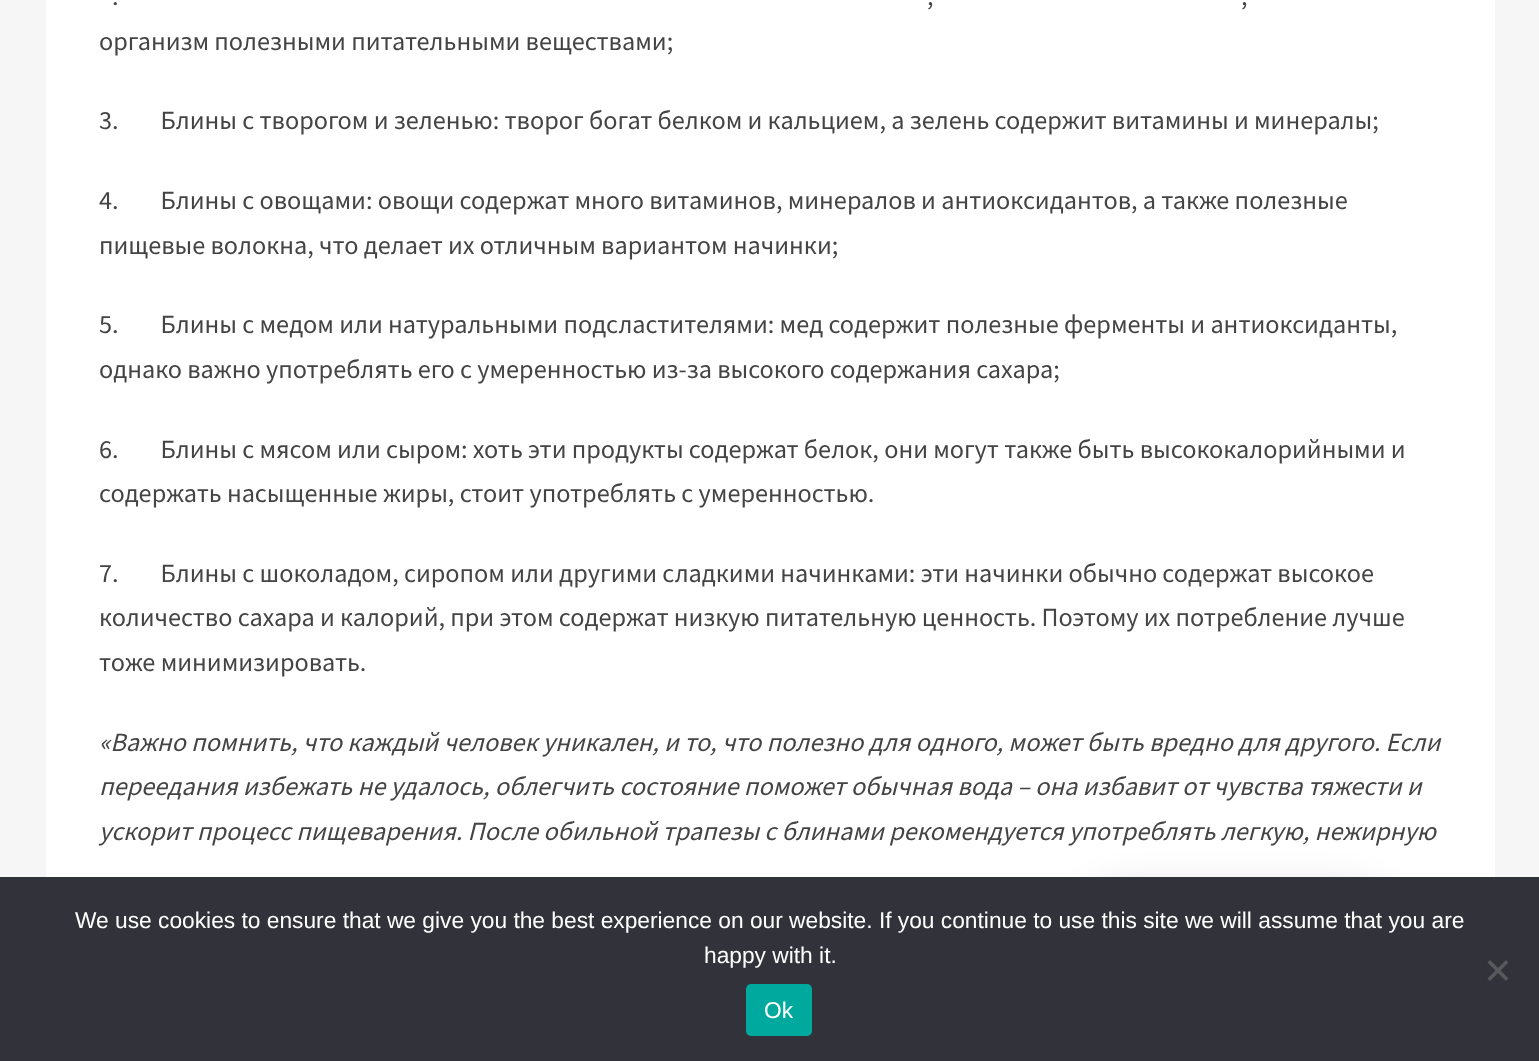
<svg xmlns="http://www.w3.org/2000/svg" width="1539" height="1061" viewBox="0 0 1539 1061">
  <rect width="100%" height="100%" fill="rgb(246,246,246)"/>
  <rect x="46" y="0" width="1449" height="877" fill="rgb(255,255,255)"/>
  <g font-family="Source Sans Pro" font-size="26.25" fill="rgb(68,68,68)">
    <text x="112" y="5">.</text>
    <text x="927" y="5">,</text>
    <text x="1241" y="5">,</text>
    <text x="99" y="50">организм полезными питательными веществами;</text>
    <text x="99" y="129" xml:space="preserve">3.        Блины с творогом и зеленью: творог богат белком и кальцием, а зелень содержит витамины и минералы;</text>
    <text xml:space="preserve"><tspan x="99" y="209">4.        Блины с овощами: овощи содержат много витаминов, минералов и антиоксидантов, а также полезные</tspan><tspan x="99" y="254">пищевые волокна, что делает их отличным вариантом начинки;</tspan></text>
    <text xml:space="preserve"><tspan x="99" y="333">5.        Блины с медом или натуральными подсластителями: мед содержит полезные ферменты и антиоксиданты,</tspan><tspan x="99" y="378">однако важно употреблять его с умеренностью из-за высокого содержания сахара;</tspan></text>
    <text xml:space="preserve"><tspan x="99" y="458">6.        Блины с мясом или сыром: хоть эти продукты содержат белок, они могут также быть высококалорийными и</tspan><tspan x="99" y="502">содержать насыщенные жиры, стоит употреблять с умеренностью.</tspan></text>
    <text xml:space="preserve"><tspan x="99" y="582">7.        Блины с шоколадом, сиропом или другими сладкими начинками: эти начинки обычно содержат высокое</tspan><tspan x="99" y="626">количество сахара и калорий, при этом содержат низкую питательную ценность. Поэтому их потребление лучше</tspan><tspan x="99" y="671">тоже минимизировать.</tspan></text>
  </g>
  <g font-family="Source Sans Pro" font-size="26.25" font-style="italic" fill="rgb(68,68,68)">
    <text>
      <tspan x="99" y="751">«Важно помнить, что каждый человек уникален, и то, что полезно для одного, может быть вредно для другого. Если</tspan>
      <tspan x="99" y="795">переедания избежать не удалось, облегчить состояние поможет обычная вода – она избавит от чувства тяжести и</tspan>
      <tspan x="99" y="840">ускорит процесс пищеварения. После обильной трапезы с блинами рекомендуется употреблять легкую, нежирную</tspan>
    </text>
  </g>
  <rect x="1073" y="884" width="327" height="98" rx="49" fill="rgba(0,0,0,0.12)" filter="blur(16px)"/>
  <rect x="0" y="877" width="1539" height="184" fill="rgb(50,50,58)"/>
  <g font-family="Liberation Sans" font-size="22.75" fill="rgb(255,255,255)">
    <text x="75" y="928">We use cookies to ensure that we give you the best experience on our website. If you continue to use this site we will assume that you are</text>
    <text x="704" y="963">happy with it.</text>
  </g>
  <path d="M1506 960L1508.5 962.5L1490 981L1487.5 978.5Z" fill="rgb(89,89,93)"/>
  <path d="M1487.5 962.5L1490 960L1508.5 978.5L1506 981Z" fill="rgb(89,89,93)"/>
  <rect x="746" y="984" width="66" height="52" rx="5" fill="rgb(0,169,157)"/>
  <text x="764" y="1018" font-family="Liberation Sans" font-size="22.75" fill="rgb(255,255,255)">Ok</text>
</svg>
